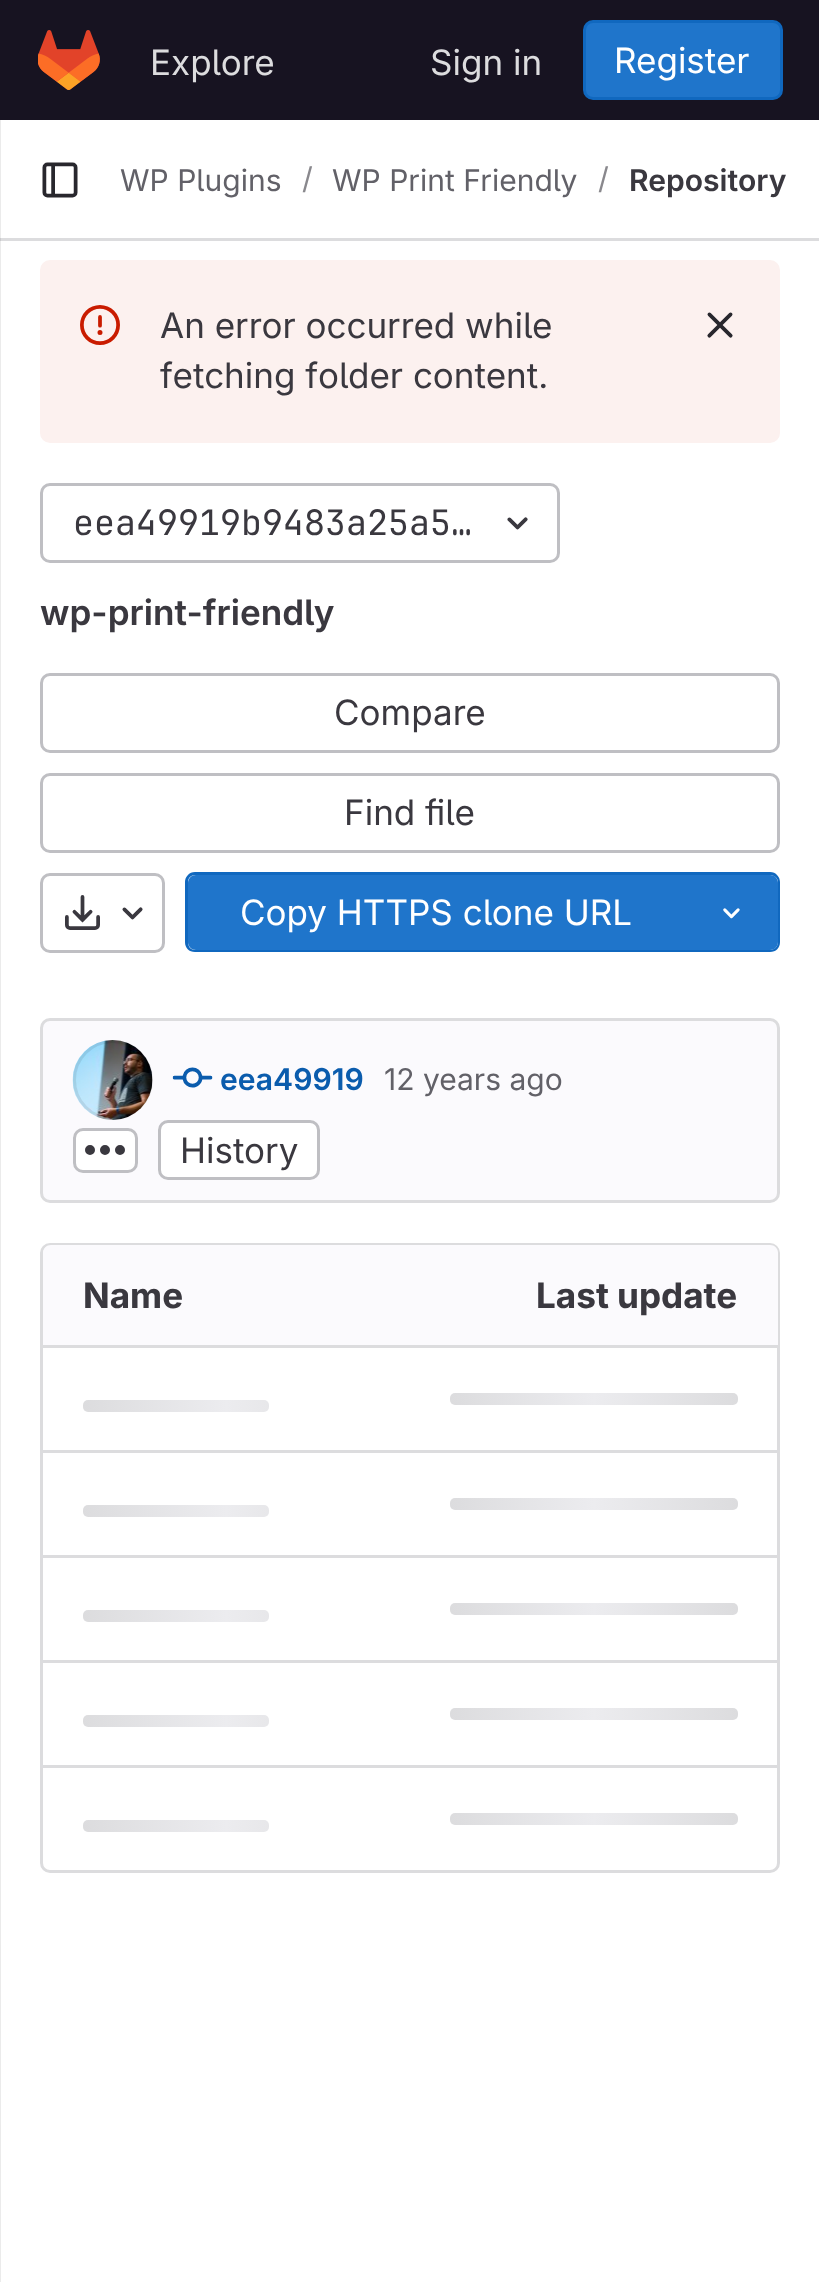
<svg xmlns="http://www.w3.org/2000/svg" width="819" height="2282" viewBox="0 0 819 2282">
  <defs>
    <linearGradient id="g1" gradientUnits="userSpaceOnUse" x1="450" y1="1393" x2="738" y2="1393"><stop offset="0" stop-color="rgb(220,220,222)"/><stop offset="0.5" stop-color="rgb(236,236,239)"/><stop offset="1" stop-color="rgb(220,220,222)"/></linearGradient>
    <linearGradient id="g2" gradientUnits="userSpaceOnUse" x1="83" y1="1400" x2="370" y2="1400"><stop offset="0" stop-color="rgb(220,220,222)"/><stop offset="0.5" stop-color="rgb(236,236,239)"/><stop offset="1" stop-color="rgb(220,220,222)"/></linearGradient>
    <linearGradient id="g3" gradientUnits="userSpaceOnUse" x1="83" y1="1505" x2="370" y2="1505"><stop offset="0" stop-color="rgb(220,220,222)"/><stop offset="0.5" stop-color="rgb(236,236,239)"/><stop offset="1" stop-color="rgb(220,220,222)"/></linearGradient>
    <linearGradient id="g4" gradientUnits="userSpaceOnUse" x1="450" y1="1498" x2="738" y2="1498"><stop offset="0" stop-color="rgb(220,220,222)"/><stop offset="0.5" stop-color="rgb(236,236,239)"/><stop offset="1" stop-color="rgb(220,220,222)"/></linearGradient>
    <linearGradient id="g5" gradientUnits="userSpaceOnUse" x1="83" y1="1610" x2="370" y2="1610"><stop offset="0" stop-color="rgb(220,220,222)"/><stop offset="0.5" stop-color="rgb(236,236,239)"/><stop offset="1" stop-color="rgb(220,220,222)"/></linearGradient>
    <linearGradient id="g6" gradientUnits="userSpaceOnUse" x1="450" y1="1603" x2="738" y2="1603"><stop offset="0" stop-color="rgb(220,220,222)"/><stop offset="0.5" stop-color="rgb(236,236,239)"/><stop offset="1" stop-color="rgb(220,220,222)"/></linearGradient>
    <linearGradient id="g7" gradientUnits="userSpaceOnUse" x1="83" y1="1715" x2="370" y2="1715"><stop offset="0" stop-color="rgb(220,220,222)"/><stop offset="0.5" stop-color="rgb(236,236,239)"/><stop offset="1" stop-color="rgb(220,220,222)"/></linearGradient>
    <linearGradient id="g8" gradientUnits="userSpaceOnUse" x1="450" y1="1708" x2="738" y2="1708"><stop offset="0" stop-color="rgb(220,220,222)"/><stop offset="0.5" stop-color="rgb(236,236,239)"/><stop offset="1" stop-color="rgb(220,220,222)"/></linearGradient>
    <linearGradient id="g9" gradientUnits="userSpaceOnUse" x1="83" y1="1820" x2="370" y2="1820"><stop offset="0" stop-color="rgb(220,220,222)"/><stop offset="0.5" stop-color="rgb(236,236,239)"/><stop offset="1" stop-color="rgb(220,220,222)"/></linearGradient>
    <linearGradient id="g10" gradientUnits="userSpaceOnUse" x1="450" y1="1813" x2="738" y2="1813"><stop offset="0" stop-color="rgb(220,220,222)"/><stop offset="0.5" stop-color="rgb(236,236,239)"/><stop offset="1" stop-color="rgb(220,220,222)"/></linearGradient>
  </defs>
  <rect width="100%" height="100%" fill="rgb(255,255,255)"/>
  <rect x="0" y="120" width="1" height="2162" fill="rgb(235,235,235)"/>
  <rect x="0" y="0" width="819" height="120" fill="rgb(23,19,33)"/>
  <image x="38" y="30" width="62" height="60" href="pic1.png"/>
  <g font-family="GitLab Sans" font-size="35" fill="rgb(220,220,222)">
    <text x="150" y="75">Explore</text>
    <text x="430" y="75">Sign in</text>
  </g>
  <rect x="584.5" y="21.5" width="197" height="77" rx="8.5" fill="rgb(31,117,203)" stroke="rgb(16,104,191)" stroke-width="3"/>
  <text x="614" y="73" font-family="GitLab Sans" font-size="35" fill="rgb(255,255,255)">Register</text>
  <rect x="0" y="238" width="819" height="3" fill="rgb(220,220,222)"/>
  <rect x="0" y="238" width="1" height="3" fill="rgb(203,203,205)"/>
  <image x="42" y="162" width="36" height="36" href="pic2.png"/>
  <text x="120" y="191" font-family="GitLab Sans" font-size="30" fill="rgb(98,97,104)">WP Plugins</text>
  <text x="302" y="189" font-family="GitLab Sans" font-size="30" fill="rgb(137,136,141)">/</text>
  <text x="332" y="191" font-family="GitLab Sans" font-size="30" fill="rgb(98,97,104)">WP Print Friendly</text>
  <text x="598" y="189" font-family="GitLab Sans" font-size="30" fill="rgb(137,136,141)">/</text>
  <text x="629" y="191" font-family="GitLab Sans" font-size="30" font-weight="600" fill="rgb(58,56,63)">Repository</text>
  <rect x="40" y="260" width="740" height="183" rx="10" fill="rgb(252,241,239)"/>
  <image x="80" y="305" width="40" height="40" href="pic3.png"/>
  <g font-family="GitLab Sans" font-size="35" fill="rgb(58,56,63)">
    <text>
      <tspan x="160" y="338">An error occurred while</tspan>
      <tspan x="160" y="388">fetching folder content.</tspan>
    </text>
  </g>
  <image x="707" y="312" width="26" height="26" href="pic4.png"/>
  <rect x="41.5" y="484.5" width="517" height="77" rx="8.5" fill="none" stroke="rgb(191,191,195)" stroke-width="3"/>
  <text x="73" y="535" font-family="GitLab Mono" font-size="35" fill="rgb(58,56,63)">eea49919b9483a25a5…</text>
  <image x="507" y="517" width="21" height="13" href="pic5.png"/>
  <text x="40" y="625" font-family="GitLab Sans" font-size="35" font-weight="600" fill="rgb(58,56,63)">wp-print-friendly</text>
  <rect x="41.5" y="674.5" width="737" height="77" rx="8.5" fill="none" stroke="rgb(191,191,195)" stroke-width="3"/>
  <text x="334" y="725" font-family="GitLab Sans" font-size="35" fill="rgb(58,56,63)">Compare</text>
  <rect x="41.5" y="774.5" width="737" height="77" rx="8.5" fill="none" stroke="rgb(191,191,195)" stroke-width="3"/>
  <text x="344" y="825" font-family="GitLab Sans" font-size="35" fill="rgb(58,56,63)">Find file</text>
  <rect x="41.5" y="874.5" width="122" height="77" rx="8.5" fill="none" stroke="rgb(191,191,195)" stroke-width="3"/>
  <image x="65" y="895" width="35" height="35" href="pic6.png"/>
  <image x="122" y="907" width="21" height="13" href="pic7.png"/>
  <path d="M196 875H685V950H196C191.5 950 188 946.5 188 942V883C188 878.5 191.5 875 196 875Z" fill="rgb(31,117,203)"/>
  <path d="M195 872H685V952H195C189 952 185 948 185 942V882C185 877 189 872 195 872ZM195 875H685V950H195C191 950 188 947 188 942V882C188 878 191 875 195 875Z" fill="rgb(16,104,191)" fill-rule="evenodd"/>
  <text x="240" y="925" font-family="GitLab Sans" font-size="35" fill="rgb(255,255,255)">Copy HTTPS clone URL</text>
  <path d="M685 875H770C774.5 875 778 878.5 778 883V942C778 946.5 774.5 950 770 950H685Z" fill="rgb(31,117,203)"/>
  <path d="M685 872H770C776 872 780 877 780 882V942C780 948 776 952 770 952H685ZM685 875H770C774 875 778 878 778 882V942C778 947 774 950 770 950H685Z" fill="rgb(16,104,191)" fill-rule="evenodd"/>
  <image x="723" y="908" width="17" height="11" href="pic8.png"/>
  <rect x="41.5" y="1019.5" width="737" height="182" rx="8.5" fill="rgb(251,250,253)" stroke="rgb(220,220,222)" stroke-width="3"/>
  <image x="72" y="1040" width="81" height="80" href="pic9.png"/>
  <circle cx="113" cy="1080" r="38.5" fill="none" stroke="rgba(5,5,6,0.08)" stroke-width="3"/>
  <image x="172" y="1067" width="41" height="21" href="pic10.png"/>
  <text x="220" y="1090" font-family="GitLab Sans" font-size="30" font-weight="600" fill="rgb(11,92,173)">eea49919</text>
  <text x="384" y="1090" font-family="GitLab Sans" font-size="30" fill="rgb(98,97,104)">12 years ago</text>
  <rect x="74.5" y="1129.5" width="62" height="42" rx="8.5" fill="rgb(255,255,255)" stroke="rgb(191,191,195)" stroke-width="3"/>
  <image x="85" y="1145" width="40" height="10" href="pic11.png"/>
  <rect x="159.5" y="1121.5" width="159" height="57" rx="8.5" fill="rgb(255,255,255)" stroke="rgb(191,191,195)" stroke-width="3"/>
  <text x="180" y="1163" font-family="GitLab Sans" font-size="35" fill="rgb(58,56,63)">History</text>
  <rect x="41.5" y="1244.5" width="737" height="627" rx="8.5" fill="none" stroke="rgb(220,220,222)" stroke-width="3"/>
  <path d="M51 1245H410V1348H43V1253C43 1248.5 46.5 1245 51 1245Z" fill="rgb(251,250,253)"/>
  <text x="83" y="1308" font-family="GitLab Sans" font-size="35" font-weight="bold" fill="rgb(58,56,63)">Name</text>
  <path d="M410 1245H770C774.5 1245 778 1248.5 778 1253V1348H410Z" fill="rgb(251,250,253)"/>
  <text x="536" y="1308" font-family="GitLab Sans" font-size="35" font-weight="bold" fill="rgb(58,56,63)">Last update</text>
  <rect x="43" y="1450" width="735" height="3" fill="rgb(220,220,222)"/>
  <rect x="43" y="1345" width="735" height="3" fill="rgb(220,220,222)"/>
  <rect x="450" y="1393" width="288" height="12" rx="5" fill="url(#g1)"/>
  <rect x="83" y="1400" width="186" height="12" rx="5" fill="url(#g2)"/>
  <rect x="43" y="1555" width="735" height="3" fill="rgb(220,220,222)"/>
  <rect x="83" y="1505" width="186" height="12" rx="5" fill="url(#g3)"/>
  <rect x="450" y="1498" width="288" height="12" rx="5" fill="url(#g4)"/>
  <rect x="43" y="1660" width="735" height="3" fill="rgb(220,220,222)"/>
  <rect x="83" y="1610" width="186" height="12" rx="5" fill="url(#g5)"/>
  <rect x="450" y="1603" width="288" height="12" rx="5" fill="url(#g6)"/>
  <rect x="43" y="1765" width="735" height="3" fill="rgb(220,220,222)"/>
  <rect x="83" y="1715" width="186" height="12" rx="5" fill="url(#g7)"/>
  <rect x="450" y="1708" width="288" height="12" rx="5" fill="url(#g8)"/>
  <rect x="83" y="1820" width="186" height="12" rx="5" fill="url(#g9)"/>
  <rect x="450" y="1813" width="288" height="12" rx="5" fill="url(#g10)"/>
</svg>
